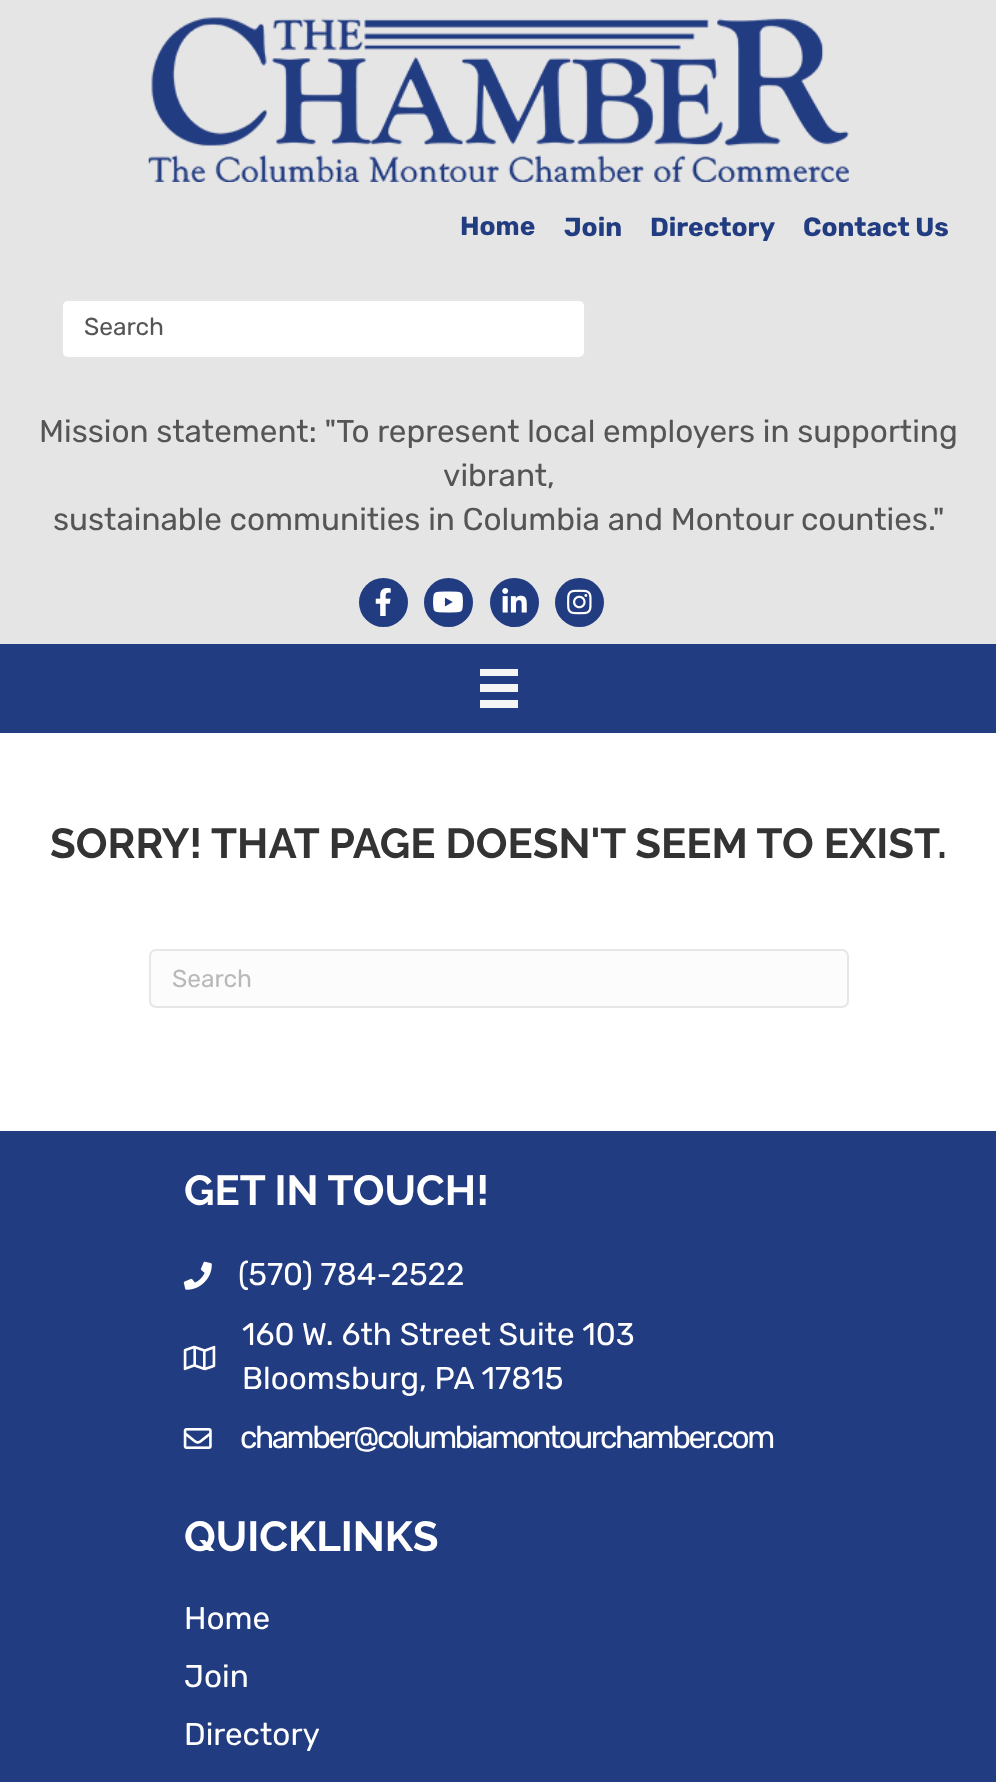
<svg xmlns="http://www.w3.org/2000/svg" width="996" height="1782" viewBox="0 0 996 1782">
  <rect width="100%" height="100%" fill="rgb(229,229,229)"/>
  <image x="148" y="17" width="701" height="165" href="pic1.png"/>
  <g font-family="Rubik" font-size="26.25" font-weight="bold" fill="rgb(34,60,130)">
    <text x="460" y="235">Home</text>
    <text x="564" y="236">Join</text>
    <text x="650" y="236">Directory</text>
    <text x="803" y="236">Contact Us</text>
  </g>
  <rect x="62" y="300" width="523" height="58" rx="6" fill="rgb(255,255,255)" stroke="rgb(230,230,230)" stroke-width="2"/>
  <text x="84" y="335" font-family="Rubik" font-size="24.5" fill="rgb(85,85,85)">Search</text>
  <g font-family="Rubik" font-size="31.5" fill="rgb(85,85,85)">
    <text x="39" y="442">Mission statement: "To represent local employers in supporting</text>
    <text x="443" y="486">vibrant,</text>
    <text x="53" y="530">sustainable communities in Columbia and Montour counties."</text>
  </g>
  <circle cx="383.5" cy="602.5" r="24.5" fill="rgb(34,60,130)"/>
  <image x="375" y="588" width="16" height="28" href="pic2.png"/>
  <circle cx="448.5" cy="602.5" r="24.5" fill="rgb(34,60,130)"/>
  <image x="433" y="591" width="30" height="22" href="pic3.png"/>
  <circle cx="514.5" cy="602.5" r="24.5" fill="rgb(34,60,130)"/>
  <image x="502" y="588" width="25" height="25" href="pic4.png"/>
  <circle cx="579.5" cy="602.5" r="24.5" fill="rgb(34,60,130)"/>
  <image x="567" y="589" width="25" height="26" href="pic5.png"/>
  <rect x="0" y="644" width="996" height="89" fill="rgb(34,60,130)"/>
  <rect x="480" y="669" width="38" height="7" fill="rgb(245,245,245)"/>
  <rect x="480" y="684" width="38" height="8" fill="rgb(245,245,245)"/>
  <rect x="480" y="700" width="38" height="8" fill="rgb(245,245,245)"/>
  <rect x="0" y="733" width="996" height="398" fill="rgb(255,255,255)"/>
  <text x="50" y="858" font-family="Raleway" font-size="42" font-weight="100" fill="rgb(51,51,51)">SORRY! THAT PAGE DOESN'T SEEM TO EXIST.</text>
  <rect x="150" y="950" width="698" height="57" rx="6" fill="rgb(252,252,252)" stroke="rgb(230,230,230)" stroke-width="2"/>
  <text x="172" y="987" font-family="Rubik" font-size="24.5" fill="rgb(185,185,185)">Search</text>
  <rect x="0" y="1131" width="996" height="651" fill="rgb(34,60,130)"/>
  <text x="184" y="1205" font-family="Raleway" font-size="42" font-weight="100" fill="rgb(255,255,255)">GET IN TOUCH!</text>
  <image x="183" y="1261" width="29" height="29" href="pic6.png"/>
  <text x="238" y="1285" font-family="Rubik" font-size="31.5" fill="rgb(255,255,255)">(570) 784-2522</text>
  <image x="183" y="1345" width="33" height="26" href="pic7.png"/>
  <g font-family="Rubik" font-size="31.5" fill="rgb(255,255,255)">
    <text>
      <tspan x="242" y="1345">160 W. 6th Street Suite 103</tspan>
      <tspan x="242" y="1389">Bloomsburg, PA 17815</tspan>
    </text>
  </g>
  <image x="183" y="1428" width="29" height="21" href="pic8.png"/>
  <text x="240" y="1448" font-family="Rubik" font-size="31.5" letter-spacing="-2.45" fill="rgb(255,255,255)">chamber@columbiamontourchamber.com</text>
  <text x="184" y="1551" font-family="Raleway" font-size="42" font-weight="100" fill="rgb(255,255,255)">QUICKLINKS</text>
  <g font-family="Rubik" font-size="31.5" fill="rgb(255,255,255)">
    <text>
      <tspan x="184" y="1629">Home</tspan>
      <tspan x="184" y="1687">Join</tspan>
      <tspan x="184" y="1745">Directory</tspan>
    </text>
  </g>
</svg>
